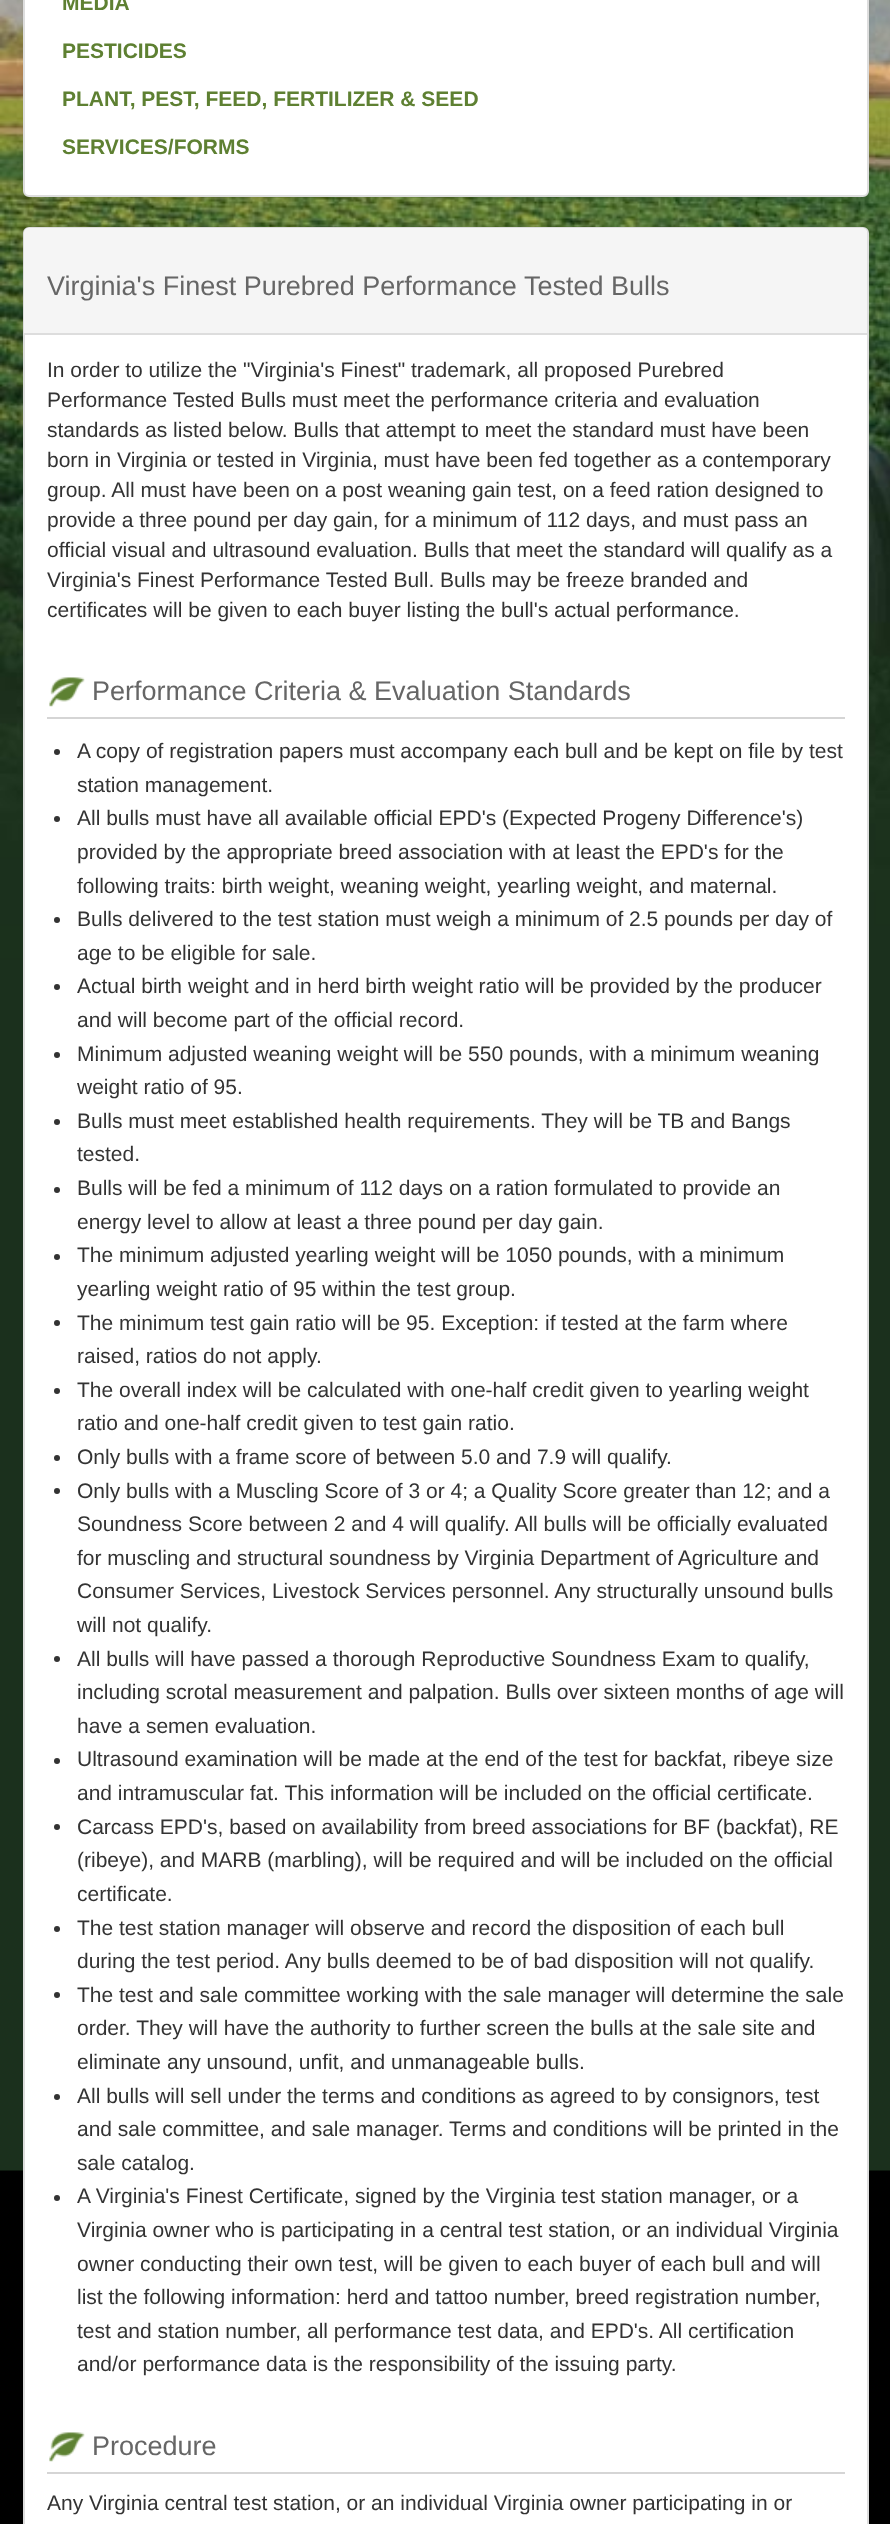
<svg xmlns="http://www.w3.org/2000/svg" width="890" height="2524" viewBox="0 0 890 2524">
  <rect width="100%" height="100%" fill="rgb(0,0,0)"/>
  <image x="0" y="0" width="890" height="2171" href="pic1.png"/>
  <rect x="23" y="-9" width="846" height="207" rx="6" fill="rgba(0,0,0,0.05)" filter="blur(1px)"/>
  <rect x="24" y="-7" width="844" height="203" rx="5" fill="rgb(255,255,255)" stroke="rgb(221,221,221)" stroke-width="2"/>
  <g font-family="Liberation Sans" font-size="21" font-weight="bold" fill="rgb(94,128,50)">
    <text x="62" y="10">MEDIA</text>
    <text x="62" y="58">PESTICIDES</text>
    <text x="62" y="106">PLANT, PEST, FEED, FERTILIZER &amp; SEED</text>
    <text x="62" y="154">SERVICES/FORMS</text>
  </g>
  <rect x="24" y="228" width="844" height="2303" rx="5" fill="rgb(255,255,255)" stroke="rgb(221,221,221)" stroke-width="2"/>
  <path d="M29 228H862C865 228 867 230 867 233V335H24V233C24 230 26 228 29 228Z" fill="rgb(245,245,245)"/>
  <rect x="24" y="333" width="843" height="2" fill="rgb(221,221,221)"/>
  <text x="47" y="295" font-family="Liberation Sans" font-size="27" fill="rgb(102,102,102)">Virginia's Finest Purebred Performance Tested Bulls</text>
  <g font-family="Liberation Sans" font-size="21" fill="rgb(51,51,51)">
    <text>
      <tspan x="47" y="377">In order to utilize the "Virginia's Finest" trademark, all proposed Purebred</tspan>
      <tspan x="47" y="407">Performance Tested Bulls must meet the performance criteria and evaluation</tspan>
      <tspan x="47" y="437">standards as listed below. Bulls that attempt to meet the standard must have been</tspan>
      <tspan x="47" y="467">born in Virginia or tested in Virginia, must have been fed together as a contemporary</tspan>
      <tspan x="47" y="497">group. All must have been on a post weaning gain test, on a feed ration designed to</tspan>
      <tspan x="47" y="527">provide a three pound per day gain, for a minimum of 112 days, and must pass an</tspan>
      <tspan x="47" y="557">official visual and ultrasound evaluation. Bulls that meet the standard will qualify as a</tspan>
      <tspan x="47" y="587">Virginia's Finest Performance Tested Bull. Bulls may be freeze branded and</tspan>
      <tspan x="47" y="617">certificates will be given to each buyer listing the bull's actual performance.</tspan>
    </text>
  </g>
  <image x="49" y="677" width="36" height="30" href="pic2.png"/>
  <rect x="47" y="717" width="798" height="2" fill="rgb(213,213,213)"/>
  <text x="92" y="700" font-family="Liberation Sans" font-size="27" fill="rgb(102,102,102)">Performance Criteria &amp; Evaluation Standards</text>
  <circle cx="57" cy="752" r="3" fill="rgb(51,51,51)"/>
  <g font-family="Liberation Sans" font-size="21" fill="rgb(51,51,51)">
    <text>
      <tspan x="77" y="758">A copy of registration papers must accompany each bull and be kept on file by test</tspan>
      <tspan x="77" y="792">station management.</tspan>
    </text>
  </g>
  <circle cx="57" cy="819" r="3" fill="rgb(51,51,51)"/>
  <g font-family="Liberation Sans" font-size="21" fill="rgb(51,51,51)">
    <text>
      <tspan x="77" y="825">All bulls must have all available official EPD's (Expected Progeny Difference's)</tspan>
      <tspan x="77" y="859">provided by the appropriate breed association with at least the EPD's for the</tspan>
      <tspan x="77" y="893">following traits: birth weight, weaning weight, yearling weight, and maternal.</tspan>
    </text>
  </g>
  <circle cx="57" cy="920" r="3" fill="rgb(51,51,51)"/>
  <g font-family="Liberation Sans" font-size="21" fill="rgb(51,51,51)">
    <text>
      <tspan x="77" y="926">Bulls delivered to the test station must weigh a minimum of 2.5 pounds per day of</tspan>
      <tspan x="77" y="960">age to be eligible for sale.</tspan>
    </text>
  </g>
  <circle cx="57" cy="987" r="3" fill="rgb(51,51,51)"/>
  <g font-family="Liberation Sans" font-size="21" fill="rgb(51,51,51)">
    <text>
      <tspan x="77" y="993">Actual birth weight and in herd birth weight ratio will be provided by the producer</tspan>
      <tspan x="77" y="1027">and will become part of the official record.</tspan>
    </text>
  </g>
  <circle cx="57" cy="1055" r="3" fill="rgb(51,51,51)"/>
  <g font-family="Liberation Sans" font-size="21" fill="rgb(51,51,51)">
    <text>
      <tspan x="77" y="1061">Minimum adjusted weaning weight will be 550 pounds, with a minimum weaning</tspan>
      <tspan x="77" y="1094">weight ratio of 95.</tspan>
    </text>
  </g>
  <circle cx="57" cy="1122" r="3" fill="rgb(51,51,51)"/>
  <g font-family="Liberation Sans" font-size="21" fill="rgb(51,51,51)">
    <text>
      <tspan x="77" y="1128">Bulls must meet established health requirements. They will be TB and Bangs</tspan>
      <tspan x="77" y="1161">tested.</tspan>
    </text>
  </g>
  <circle cx="57" cy="1190" r="3" fill="rgb(51,51,51)"/>
  <g font-family="Liberation Sans" font-size="21" fill="rgb(51,51,51)">
    <text>
      <tspan x="77" y="1195">Bulls will be fed a minimum of 112 days on a ration formulated to provide an</tspan>
      <tspan x="77" y="1229">energy level to allow at least a three pound per day gain.</tspan>
    </text>
  </g>
  <circle cx="57" cy="1257" r="3" fill="rgb(51,51,51)"/>
  <g font-family="Liberation Sans" font-size="21" fill="rgb(51,51,51)">
    <text>
      <tspan x="77" y="1262">The minimum adjusted yearling weight will be 1050 pounds, with a minimum</tspan>
      <tspan x="77" y="1296">yearling weight ratio of 95 within the test group.</tspan>
    </text>
  </g>
  <circle cx="57" cy="1323" r="3" fill="rgb(51,51,51)"/>
  <g font-family="Liberation Sans" font-size="21" fill="rgb(51,51,51)">
    <text>
      <tspan x="77" y="1330">The minimum test gain ratio will be 95. Exception: if tested at the farm where</tspan>
      <tspan x="77" y="1363">raised, ratios do not apply.</tspan>
    </text>
  </g>
  <circle cx="57" cy="1391" r="3" fill="rgb(51,51,51)"/>
  <g font-family="Liberation Sans" font-size="21" fill="rgb(51,51,51)">
    <text>
      <tspan x="77" y="1397">The overall index will be calculated with one-half credit given to yearling weight</tspan>
      <tspan x="77" y="1430">ratio and one-half credit given to test gain ratio.</tspan>
    </text>
  </g>
  <circle cx="57" cy="1458" r="3" fill="rgb(51,51,51)"/>
  <text x="77" y="1464" font-family="Liberation Sans" font-size="21" fill="rgb(51,51,51)">Only bulls with a frame score of between 5.0 and 7.9 will qualify.</text>
  <circle cx="57" cy="1491" r="3" fill="rgb(51,51,51)"/>
  <g font-family="Liberation Sans" font-size="21" fill="rgb(51,51,51)">
    <text>
      <tspan x="77" y="1498">Only bulls with a Muscling Score of 3 or 4; a Quality Score greater than 12; and a</tspan>
      <tspan x="77" y="1531">Soundness Score between 2 and 4 will qualify. All bulls will be officially evaluated</tspan>
      <tspan x="77" y="1565">for muscling and structural soundness by Virginia Department of Agriculture and</tspan>
      <tspan x="77" y="1598">Consumer Services, Livestock Services personnel. Any structurally unsound bulls</tspan>
      <tspan x="77" y="1632">will not qualify.</tspan>
    </text>
  </g>
  <circle cx="57" cy="1659" r="3" fill="rgb(51,51,51)"/>
  <g font-family="Liberation Sans" font-size="21" fill="rgb(51,51,51)">
    <text>
      <tspan x="77" y="1666">All bulls will have passed a thorough Reproductive Soundness Exam to qualify,</tspan>
      <tspan x="77" y="1699">including scrotal measurement and palpation. Bulls over sixteen months of age will</tspan>
      <tspan x="77" y="1733">have a semen evaluation.</tspan>
    </text>
  </g>
  <circle cx="57" cy="1761" r="3" fill="rgb(51,51,51)"/>
  <g font-family="Liberation Sans" font-size="21" fill="rgb(51,51,51)">
    <text>
      <tspan x="77" y="1766">Ultrasound examination will be made at the end of the test for backfat, ribeye size</tspan>
      <tspan x="77" y="1800">and intramuscular fat. This information will be included on the official certificate.</tspan>
    </text>
  </g>
  <circle cx="57" cy="1827" r="3" fill="rgb(51,51,51)"/>
  <g font-family="Liberation Sans" font-size="21" fill="rgb(51,51,51)">
    <text>
      <tspan x="77" y="1834">Carcass EPD's, based on availability from breed associations for BF (backfat), RE</tspan>
      <tspan x="77" y="1867">(ribeye), and MARB (marbling), will be required and will be included on the official</tspan>
      <tspan x="77" y="1901">certificate.</tspan>
    </text>
  </g>
  <circle cx="57" cy="1929" r="3" fill="rgb(51,51,51)"/>
  <g font-family="Liberation Sans" font-size="21" fill="rgb(51,51,51)">
    <text>
      <tspan x="77" y="1935">The test station manager will observe and record the disposition of each bull</tspan>
      <tspan x="77" y="1968">during the test period. Any bulls deemed to be of bad disposition will not qualify.</tspan>
    </text>
  </g>
  <circle cx="57" cy="1995" r="3" fill="rgb(51,51,51)"/>
  <g font-family="Liberation Sans" font-size="21" fill="rgb(51,51,51)">
    <text>
      <tspan x="77" y="2002">The test and sale committee working with the sale manager will determine the sale</tspan>
      <tspan x="77" y="2035">order. They will have the authority to further screen the bulls at the sale site and</tspan>
      <tspan x="77" y="2069">eliminate any unsound, unfit, and unmanageable bulls.</tspan>
    </text>
  </g>
  <circle cx="57" cy="2097" r="3" fill="rgb(51,51,51)"/>
  <g font-family="Liberation Sans" font-size="21" fill="rgb(51,51,51)">
    <text>
      <tspan x="77" y="2103">All bulls will sell under the terms and conditions as agreed to by consignors, test</tspan>
      <tspan x="77" y="2136">and sale committee, and sale manager. Terms and conditions will be printed in the</tspan>
      <tspan x="77" y="2170">sale catalog.</tspan>
    </text>
  </g>
  <circle cx="57" cy="2198" r="3" fill="rgb(51,51,51)"/>
  <g font-family="Liberation Sans" font-size="21" fill="rgb(51,51,51)">
    <text>
      <tspan x="77" y="2203">A Virginia's Finest Certificate, signed by the Virginia test station manager, or a</tspan>
      <tspan x="77" y="2237">Virginia owner who is participating in a central test station, or an individual Virginia</tspan>
      <tspan x="77" y="2271">owner conducting their own test, will be given to each buyer of each bull and will</tspan>
      <tspan x="77" y="2304">list the following information: herd and tattoo number, breed registration number,</tspan>
      <tspan x="77" y="2338">test and station number, all performance test data, and EPD's. All certification</tspan>
      <tspan x="77" y="2371">and/or performance data is the responsibility of the issuing party.</tspan>
    </text>
  </g>
  <image x="49" y="2432" width="36" height="30" href="pic2.png"/>
  <rect x="47" y="2472" width="798" height="2" fill="rgb(213,213,213)"/>
  <text x="92" y="2455" font-family="Liberation Sans" font-size="27" fill="rgb(102,102,102)">Procedure</text>
  <text x="47" y="2510" font-family="Liberation Sans" font-size="21" fill="rgb(51,51,51)">Any Virginia central test station, or an individual Virginia owner participating in or</text>
</svg>
